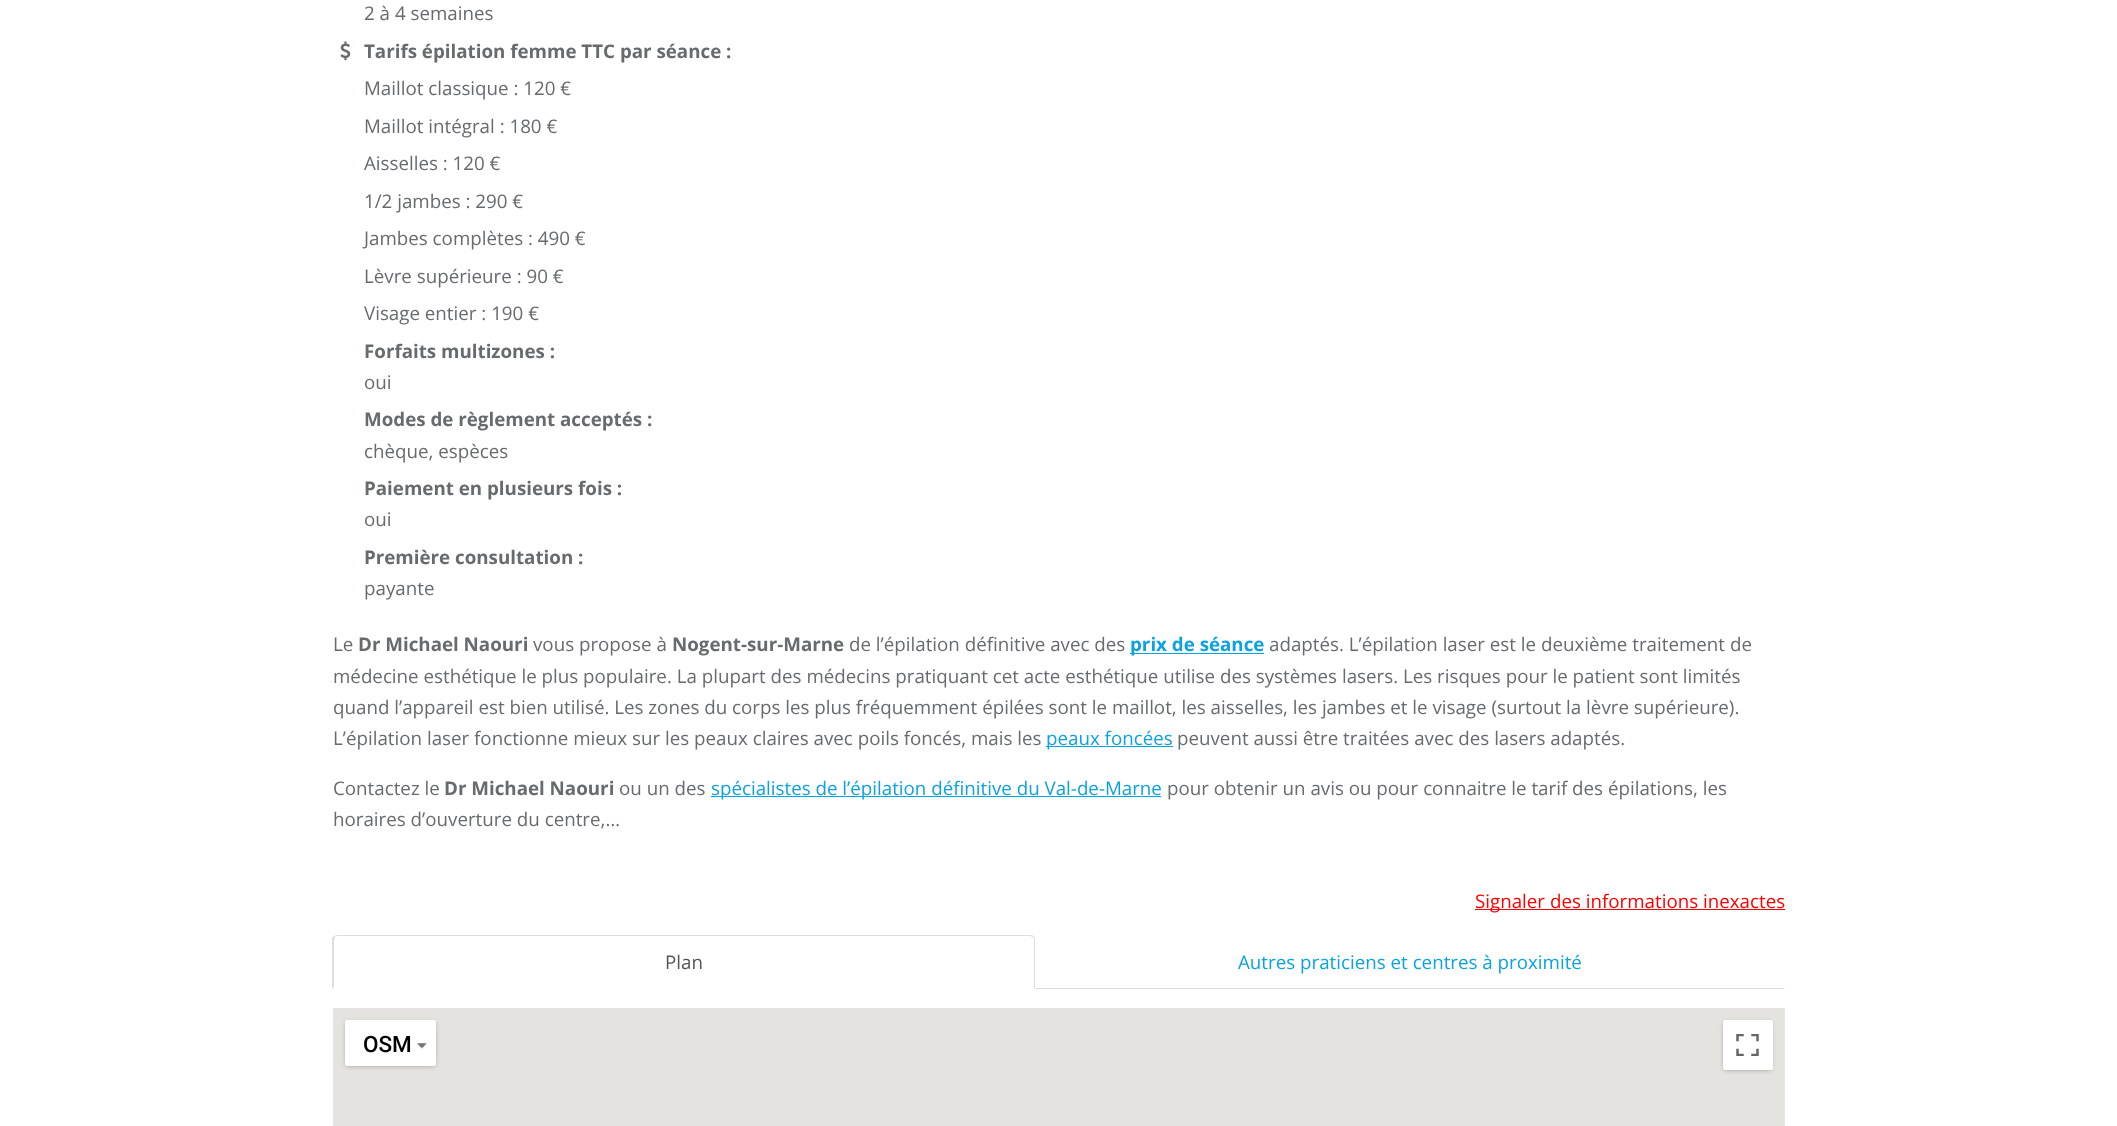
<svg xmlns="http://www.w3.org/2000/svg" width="2117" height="1126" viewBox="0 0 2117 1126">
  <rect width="100%" height="100%" fill="rgb(255,255,255)"/>
  <text x="364" y="20" font-family="Open Sans" font-size="18.75" fill="rgb(103,107,109)">2 à 4 semaines</text>
  <image x="340" y="41" width="11" height="20" href="pic1.png"/>
  <text x="364" y="58" font-family="Open Sans" font-size="18.75" font-weight="bold" fill="rgb(103,107,109)">Tarifs épilation femme TTC par séance :</text>
  <g font-family="Open Sans" font-size="18.75" fill="rgb(103,107,109)">
    <text x="364" y="95">Maillot classique : 120 €</text>
    <text>
      <tspan x="364" y="133">Maillot intégral : 180 €</tspan>
      <tspan x="364" y="170">Aisselles : 120 €</tspan>
    </text>
    <text>
      <tspan x="364" y="208">1/2 jambes : 290 €</tspan>
      <tspan x="364" y="245">Jambes complètes : 490 €</tspan>
    </text>
    <text>
      <tspan x="364" y="283">Lèvre supérieure : 90 €</tspan>
      <tspan x="364" y="320">Visage entier : 190 €</tspan>
    </text>
  </g>
  <text x="364" y="358" font-family="Open Sans" font-size="18.75" font-weight="bold" fill="rgb(103,107,109)">Forfaits multizones :</text>
  <text x="364" y="389" font-family="Open Sans" font-size="18.75" fill="rgb(103,107,109)">oui</text>
  <text x="364" y="426" font-family="Open Sans" font-size="18.75" font-weight="bold" fill="rgb(103,107,109)">Modes de règlement acceptés :</text>
  <text x="364" y="458" font-family="Open Sans" font-size="18.75" fill="rgb(103,107,109)">chèque, espèces</text>
  <text x="364" y="495" font-family="Open Sans" font-size="18.75" font-weight="bold" fill="rgb(103,107,109)">Paiement en plusieurs fois :</text>
  <text x="364" y="526" font-family="Open Sans" font-size="18.75" fill="rgb(103,107,109)">oui</text>
  <text x="364" y="564" font-family="Open Sans" font-size="18.75" font-weight="bold" fill="rgb(103,107,109)">Première consultation :</text>
  <g font-family="Open Sans" font-size="18.75" fill="rgb(103,107,109)">
    <text x="364" y="595">payante</text>
    <text x="333" y="651">Le</text>
  </g>
  <text x="358" y="651" font-family="Open Sans" font-size="18.75" font-weight="bold" fill="rgb(103,107,109)">Dr Michael Naouri</text>
  <text x="533" y="651" font-family="Open Sans" font-size="18.75" fill="rgb(103,107,109)">vous propose à</text>
  <text x="672" y="651" font-family="Open Sans" font-size="18.75" font-weight="bold" fill="rgb(103,107,109)">Nogent-sur-Marne</text>
  <text x="849" y="651" font-family="Open Sans" font-size="18.75" fill="rgb(103,107,109)">de l’épilation définitive avec des</text>
  <rect x="1130" y="653" width="134" height="1" fill="rgb(12,162,224)"/>
  <text x="1130" y="651" font-family="Open Sans" font-size="18.75" font-weight="bold" fill="rgb(12,162,224)">prix de séance</text>
  <g font-family="Open Sans" font-size="18.75" fill="rgb(103,107,109)">
    <text x="1269" y="651">adaptés. L’épilation laser est le deuxième traitement de</text>
    <text>
      <tspan x="333" y="683">médecine esthétique le plus populaire. La plupart des médecins pratiquant cet acte esthétique utilise des systèmes lasers. Les risques pour le patient sont limités</tspan>
      <tspan x="333" y="714">quand l’appareil est bien utilisé. Les zones du corps les plus fréquemment épilées sont le maillot, les aisselles, les jambes et le visage (surtout la lèvre supérieure).</tspan>
      <tspan x="333" y="745">L’épilation laser fonctionne mieux sur les peaux claires avec poils foncés, mais les</tspan>
    </text>
  </g>
  <rect x="1046" y="746" width="127" height="1" fill="rgb(12,162,224)"/>
  <text x="1046" y="745" font-family="Open Sans" font-size="18.75" fill="rgb(12,162,224)">peaux foncées</text>
  <g font-family="Open Sans" font-size="18.75" fill="rgb(103,107,109)">
    <text x="1177" y="745">peuvent aussi être traitées avec des lasers adaptés.</text>
    <text x="333" y="795">Contactez le</text>
  </g>
  <text x="444" y="795" font-family="Open Sans" font-size="18.75" font-weight="bold" fill="rgb(103,107,109)">Dr Michael Naouri</text>
  <text x="619" y="795" font-family="Open Sans" font-size="18.75" fill="rgb(103,107,109)">ou un des</text>
  <rect x="711" y="796" width="450" height="1" fill="rgb(12,162,224)"/>
  <text x="711" y="795" font-family="Open Sans" font-size="18.75" fill="rgb(12,162,224)">spécialistes de l’épilation définitive du Val-de-Marne</text>
  <g font-family="Open Sans" font-size="18.75" fill="rgb(103,107,109)">
    <text x="1167" y="795">pour obtenir un avis ou pour connaitre le tarif des épilations, les</text>
    <text x="333" y="826">horaires d’ouverture du centre,…</text>
  </g>
  <rect x="1475" y="909" width="310" height="1" fill="rgb(255,0,0)"/>
  <text x="1475" y="908" font-family="Open Sans" font-size="18.75" fill="rgb(255,0,0)">Signaler des informations inexactes</text>
  <path d="M338 935C336 935 335 936 334 936L335 937L336 936H1030L1033 937L1034 936C1033 936 1032 935 1030 935Z" fill="rgb(221,221,221)"/>
  <path d="M1035 989V940C1035 938 1034 937 1034 936L1033 937L1034 939V988Z" fill="rgb(221,221,221)"/>
  <path d="M1035 989L1034 988H334V987L332 989Z" fill="rgb(255,255,255)"/>
  <path d="M332 989V938L334 936L335 937L334 940V987Z" fill="rgb(221,221,221)"/>
  <text x="665" y="969" font-family="Open Sans" font-size="18.75" fill="rgb(85,85,85)">Plan</text>
  <path d="M1785 989H1035L1036 988H1784Z" fill="rgb(221,221,221)"/>
  <text x="1238" y="969" font-family="Open Sans" font-size="18.75" fill="rgb(12,162,224)">Autres praticiens et centres à proximité</text>
  <rect x="333" y="1008" width="1452" height="118" fill="rgb(229,227,223)"/>
  <rect x="346" y="1023" width="89" height="43" rx="1" fill="rgba(0,0,0,0.3)" filter="blur(2.5px)"/>
  <rect x="345" y="1020" width="91" height="46" rx="2.5" fill="rgb(255,255,255)"/>
  <text x="363" y="1052" font-family="Roboto" font-size="22.5" font-weight="500" fill="rgb(0,0,0)">OSM</text>
  <image x="417" y="1043" width="10" height="6" href="pic2.png"/>
  <rect x="1724" y="1023" width="47" height="47" rx="1" fill="rgba(0,0,0,0.3)" filter="blur(2.5px)"/>
  <rect x="1723" y="1020" width="50" height="50" rx="2.5" fill="rgb(255,255,255)"/>
  <image x="1736" y="1034" width="23" height="22" href="pic3.png"/>
</svg>
